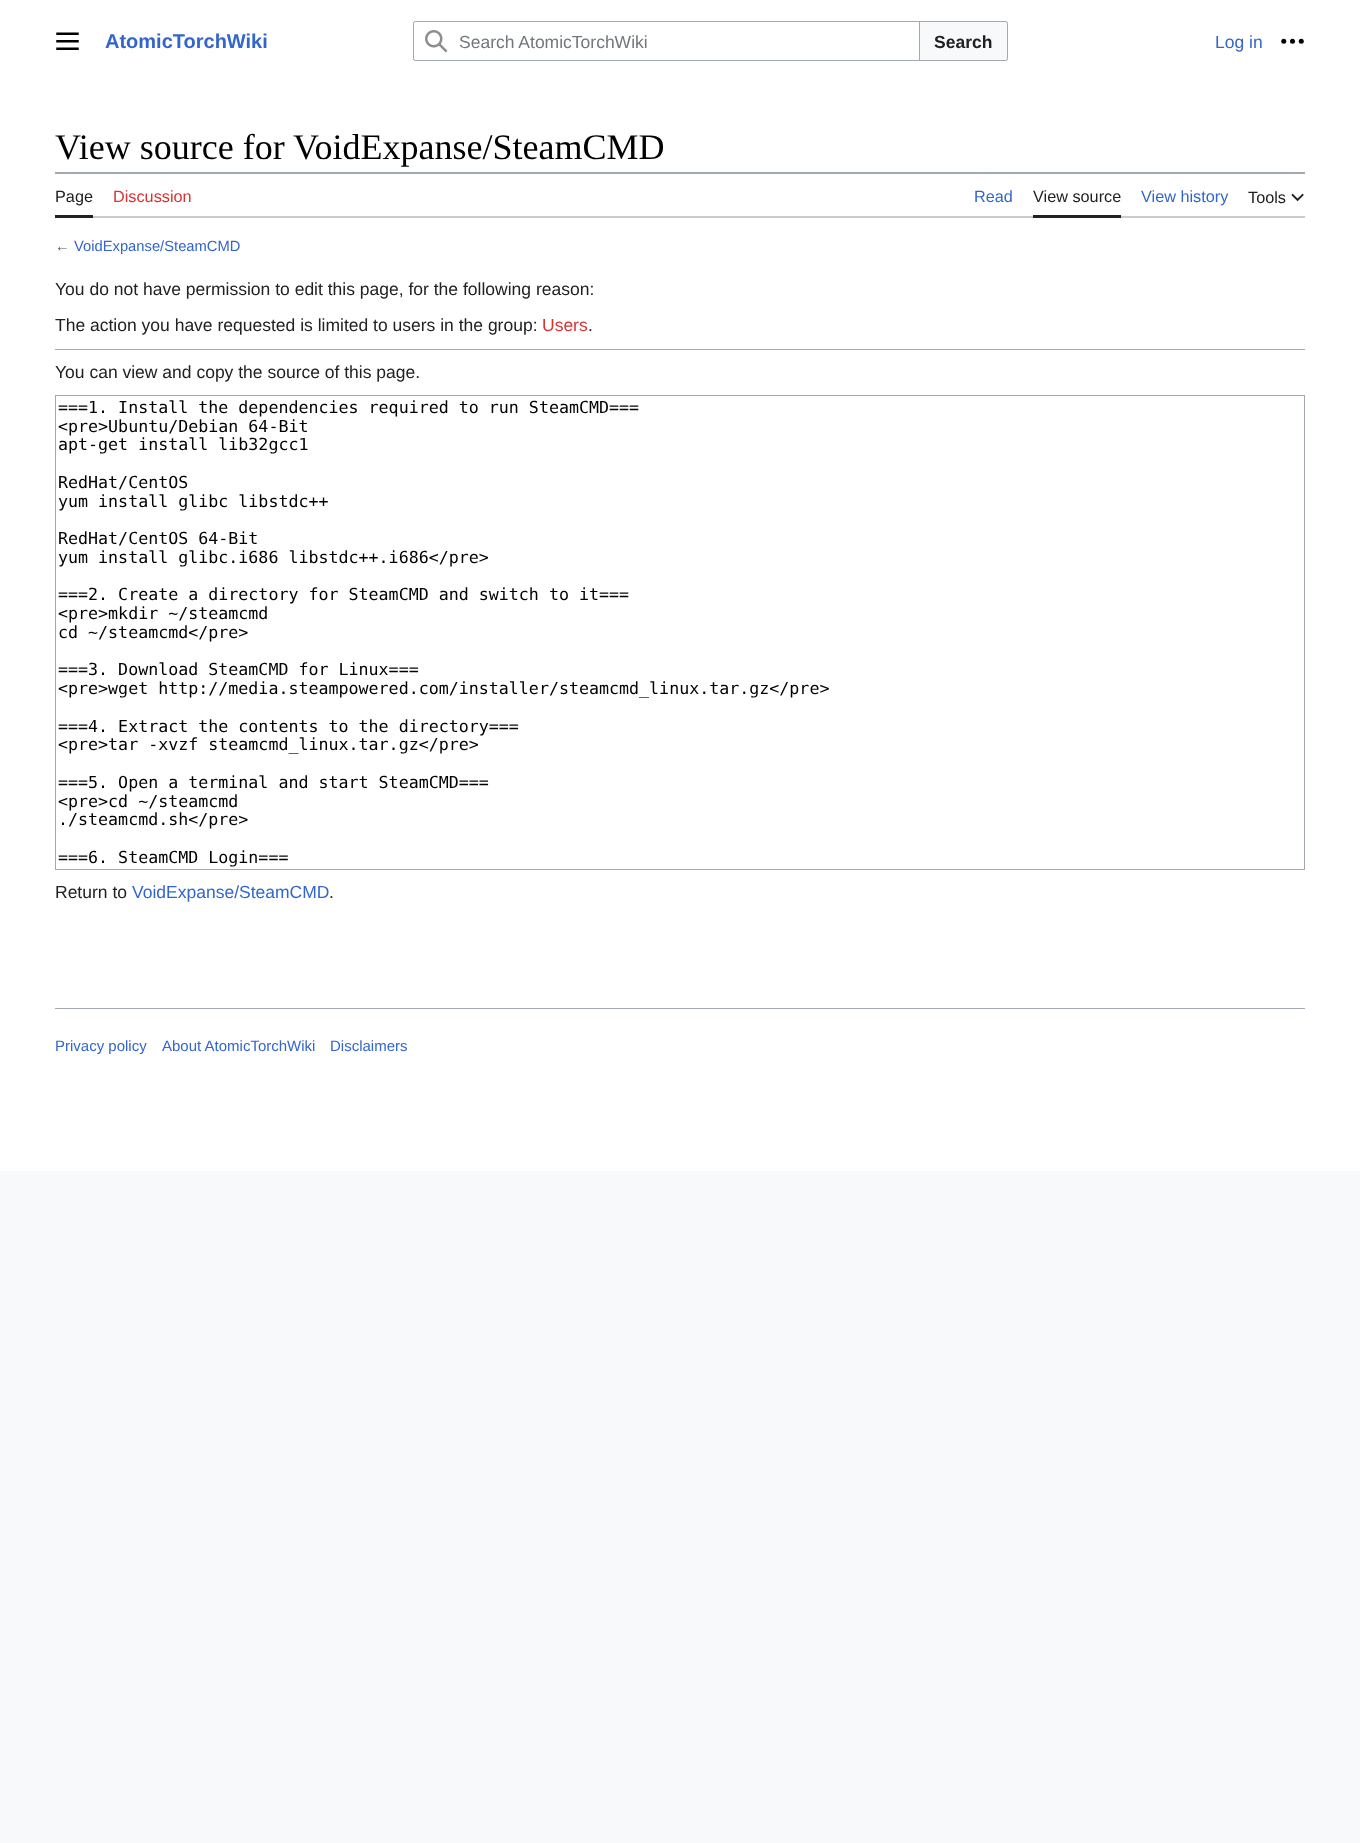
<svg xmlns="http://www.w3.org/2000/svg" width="1360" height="1843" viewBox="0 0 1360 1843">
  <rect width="100%" height="100%" fill="rgb(248,249,250)"/>
  <rect x="0" y="0" width="1360" height="1171" fill="rgb(255,255,255)"/>
  <image x="56" y="32" width="23" height="18" href="pic1.png"/>
  <text x="105" y="48" font-family="Liberation Sans" font-size="20" font-weight="bold" fill="rgb(51,102,204)">AtomicTorchWiki</text>
  <rect x="413.5" y="21.5" width="594" height="39" rx="2" fill="none" stroke="rgb(162,169,177)"/>
  <path d="M919.5 21.5H1005.5C1006.5 21.5 1007.5 22.5 1007.5 23.5V58.5C1007.5 59.5 1006.5 60.5 1005.5 60.5H919.5Z" fill="rgb(248,249,250)" stroke="rgb(162,169,177)"/>
  <path d="M415.5 21.5H919.5V60.5H415.5C414.5 60.5 413.5 59.5 413.5 58.5V23.5C413.5 22.5 414.5 21.5 415.5 21.5Z" fill="rgb(255,255,255)" stroke="rgb(162,169,177)"/>
  <image x="425" y="30" width="23" height="23" href="pic2.png"/>
  <text x="459" y="48" font-family="Liberation Sans" font-size="17.5" fill="rgb(114,119,125)">Search AtomicTorchWiki</text>
  <text x="934" y="48" font-family="Liberation Sans" font-size="17.5" font-weight="bold" fill="rgb(32,33,34)">Search</text>
  <text x="1215" y="48" font-family="Liberation Sans" font-size="17.5" fill="rgb(51,102,204)">Log in</text>
  <image x="1281" y="38" width="23" height="6" href="pic3.png"/>
  <rect x="55" y="172" width="1250" height="2" fill="rgb(162,169,177)"/>
  <text x="55" y="159" font-family="Liberation Serif" font-size="36" fill="rgb(0,0,0)">View source for VoidExpanse/SteamCMD</text>
  <rect x="93" y="216" width="1212" height="2" fill="rgb(200,204,209)"/>
  <rect x="55" y="215" width="38" height="3" fill="rgb(32,33,34)"/>
  <text x="55" y="202" font-family="Liberation Sans" font-size="16.25" fill="rgb(32,33,34)">Page</text>
  <text x="113" y="202" font-family="Liberation Sans" font-size="16.25" fill="rgb(215,51,51)">Discussion</text>
  <text x="974" y="202" font-family="Liberation Sans" font-size="16.25" fill="rgb(51,102,204)">Read</text>
  <rect x="1033" y="215" width="88" height="3" fill="rgb(32,33,34)"/>
  <text x="1033" y="202" font-family="Liberation Sans" font-size="16.25" fill="rgb(32,33,34)">View source</text>
  <text x="1141" y="202" font-family="Liberation Sans" font-size="16.25" fill="rgb(51,102,204)">View history</text>
  <text x="1248" y="203" font-family="Liberation Sans" font-size="16.25" fill="rgb(32,33,34)">Tools</text>
  <image x="1291" y="193" width="13" height="9" href="pic4.png"/>
  <text x="55" y="251" font-family="Liberation Sans" font-size="14.75" fill="rgb(84,89,93)">←</text>
  <text x="74" y="251" font-family="Liberation Sans" font-size="14.75" fill="rgb(51,102,204)">VoidExpanse/SteamCMD</text>
  <g font-family="Liberation Sans" font-size="17.5" fill="rgb(32,33,34)">
    <text x="55" y="295">You do not have permission to edit this page, for the following reason:</text>
    <text x="55" y="331">The action you have requested is limited to users in the group:</text>
  </g>
  <text x="542" y="331" font-family="Liberation Sans" font-size="17.5" fill="rgb(215,51,51)">Users</text>
  <text x="588" y="331" font-family="Liberation Sans" font-size="17.5" fill="rgb(32,33,34)">.</text>
  <rect x="55" y="349" width="1250" height="1" fill="rgb(162,169,177)"/>
  <text x="55" y="378" font-family="Liberation Sans" font-size="17.5" fill="rgb(32,33,34)">You can view and copy the source of this page.</text>
  <rect x="55.5" y="395.5" width="1249" height="474" fill="none" stroke="rgb(162,169,177)"/>
  <g font-family="DejaVu Sans Mono" font-size="16.65" fill="rgb(0,0,0)">
    <text>
      <tspan x="58" y="413">===1. Install the dependencies required to run SteamCMD===</tspan>
      <tspan x="58" y="432">&lt;pre&gt;Ubuntu/Debian 64-Bit</tspan>
      <tspan x="58" y="450">apt-get install lib32gcc1</tspan>
    </text>
    <text>
      <tspan x="58" y="488">RedHat/CentOS</tspan>
      <tspan x="58" y="507">yum install glibc libstdc++</tspan>
    </text>
    <text>
      <tspan x="58" y="544">RedHat/CentOS 64-Bit</tspan>
      <tspan x="58" y="563">yum install glibc.i686 libstdc++.i686&lt;/pre&gt;</tspan>
    </text>
    <text>
      <tspan x="58" y="600">===2. Create a directory for SteamCMD and switch to it===</tspan>
      <tspan x="58" y="619">&lt;pre&gt;mkdir ~/steamcmd</tspan>
      <tspan x="58" y="638">cd ~/steamcmd&lt;/pre&gt;</tspan>
    </text>
    <text>
      <tspan x="58" y="675">===3. Download SteamCMD for Linux===</tspan>
      <tspan x="58" y="694">&lt;pre&gt;wget http://media.steampowered.com/installer/steamcmd_linux.tar.gz&lt;/pre&gt;</tspan>
    </text>
    <text>
      <tspan x="58" y="732">===4. Extract the contents to the directory===</tspan>
      <tspan x="58" y="750">&lt;pre&gt;tar -xvzf steamcmd_linux.tar.gz&lt;/pre&gt;</tspan>
    </text>
    <text>
      <tspan x="58" y="788">===5. Open a terminal and start SteamCMD===</tspan>
      <tspan x="58" y="807">&lt;pre&gt;cd ~/steamcmd</tspan>
      <tspan x="58" y="825">./steamcmd.sh&lt;/pre&gt;</tspan>
    </text>
    <text x="58" y="863">===6. SteamCMD Login===</text>
  </g>
  <text x="55" y="898" font-family="Liberation Sans" font-size="17.5" fill="rgb(32,33,34)">Return to</text>
  <text x="132" y="898" font-family="Liberation Sans" font-size="17.5" fill="rgb(51,102,204)">VoidExpanse/SteamCMD</text>
  <text x="329" y="898" font-family="Liberation Sans" font-size="17.5" fill="rgb(32,33,34)">.</text>
  <rect x="55" y="1008" width="1250" height="1" fill="rgb(162,169,177)"/>
  <g font-family="Liberation Sans" font-size="15" fill="rgb(51,102,204)">
    <text x="55" y="1051">Privacy policy</text>
    <text x="162" y="1051">About AtomicTorchWiki</text>
    <text x="330" y="1051">Disclaimers</text>
  </g>
</svg>
